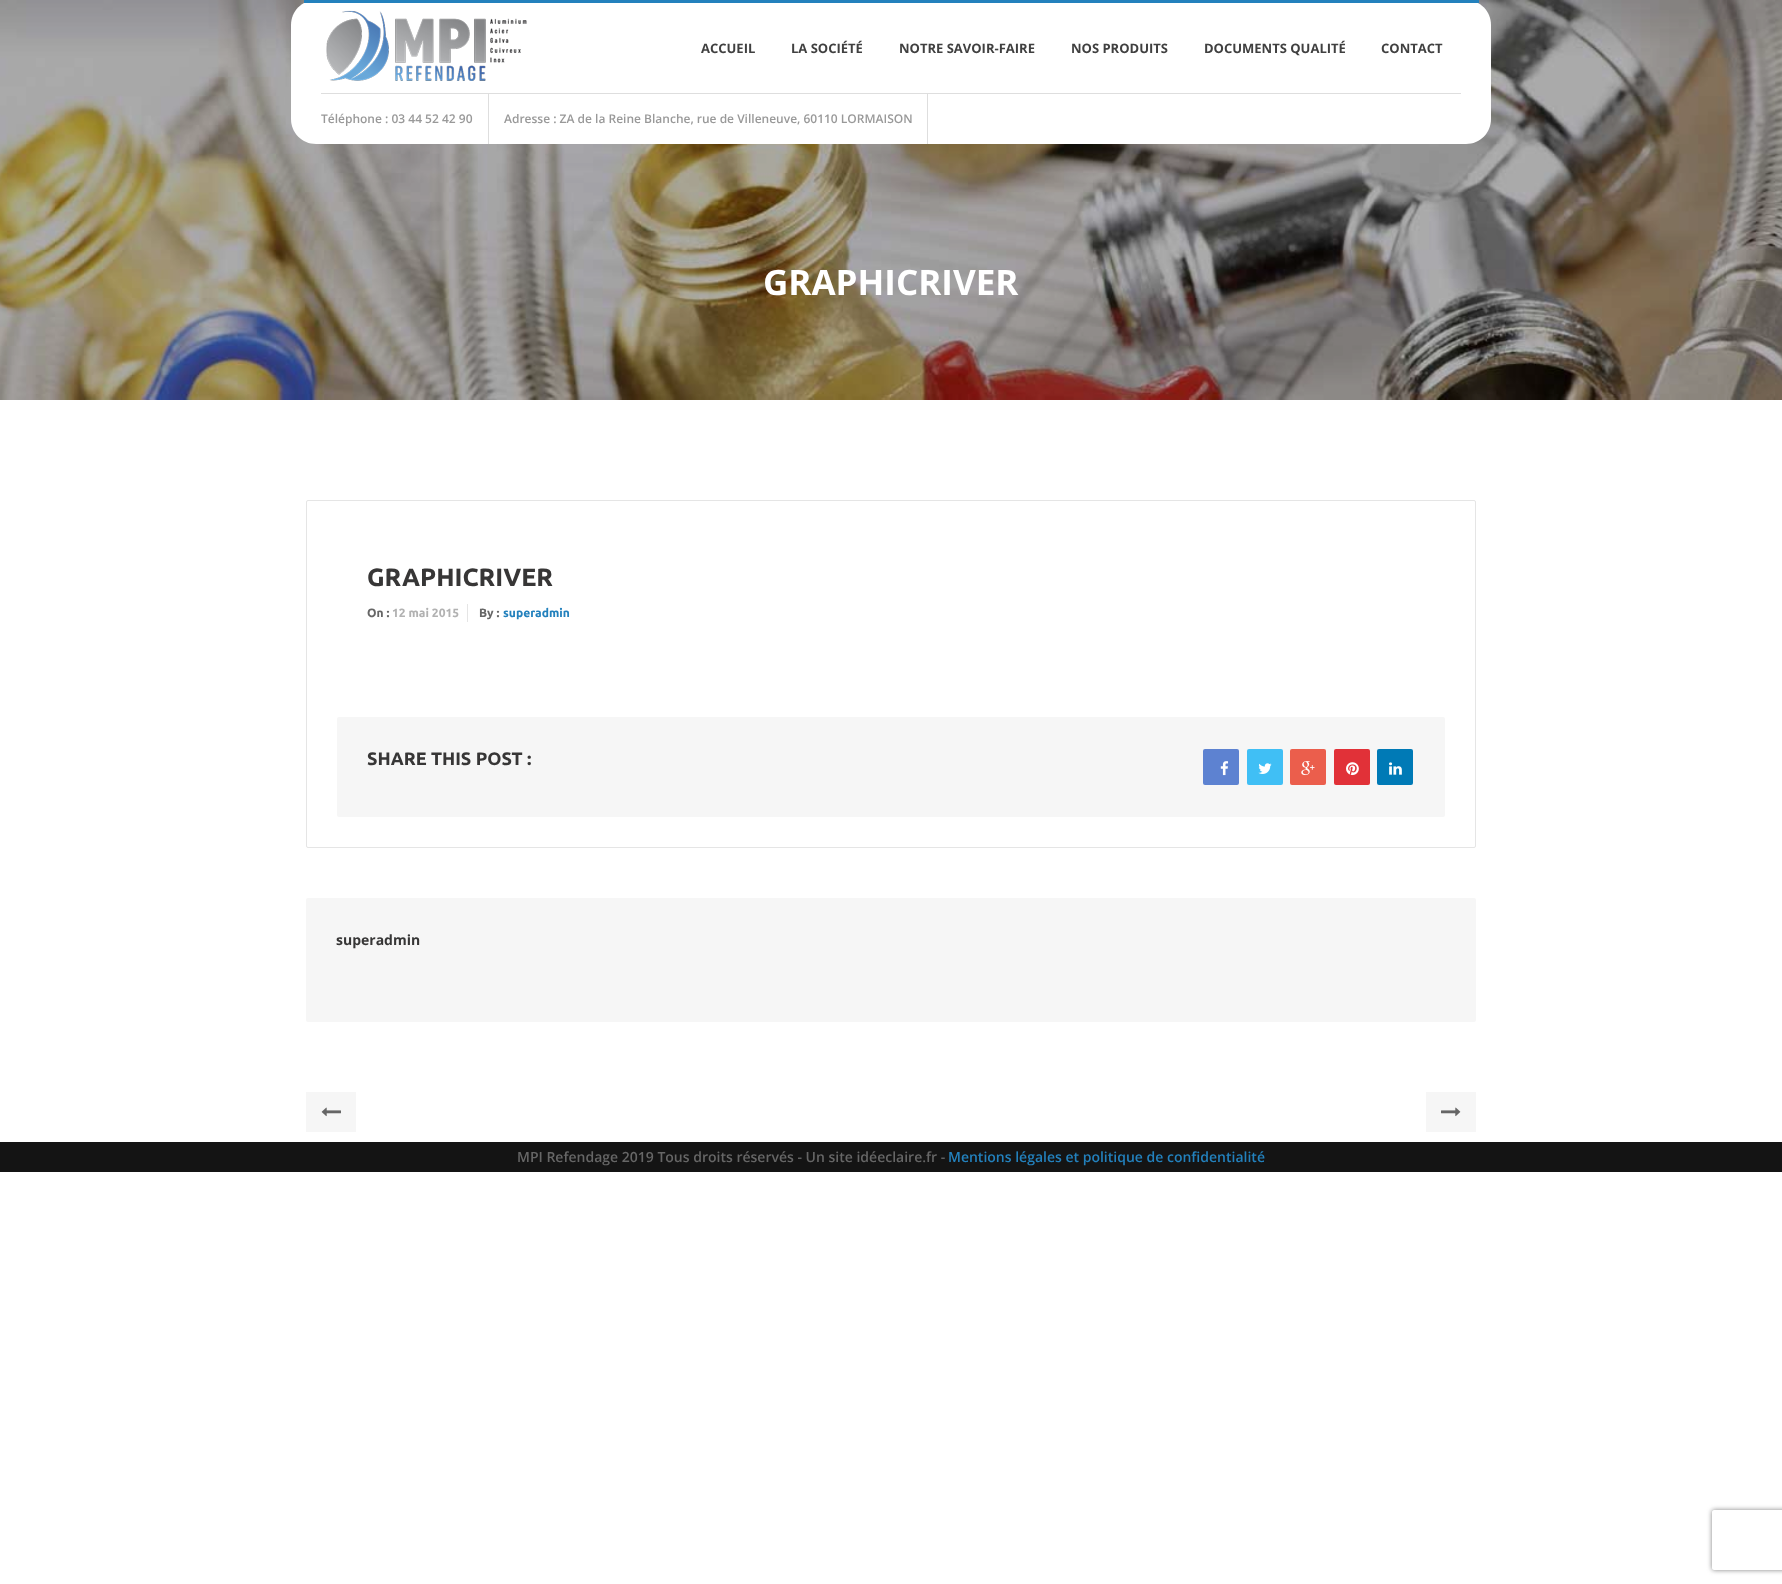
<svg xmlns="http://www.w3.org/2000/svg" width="1782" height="1584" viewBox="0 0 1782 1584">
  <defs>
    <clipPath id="clip1"><path d="M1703 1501H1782V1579H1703ZM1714 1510H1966C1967 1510 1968 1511 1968 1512V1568C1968 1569 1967 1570 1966 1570H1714C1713 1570 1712 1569 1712 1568V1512C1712 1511 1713 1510 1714 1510Z" clip-rule="evenodd"/></clipPath>
  </defs>
  <rect width="100%" height="100%" fill="rgb(255,255,255)"/>
  <image x="0" y="0" width="1782" height="400" href="pic2.png"/>
  <path d="M316 0H1466C1480 0 1491 11 1491 25V93H291V25C291 11 302 0 316 0Z" fill="rgb(255,255,255)"/>
  <rect x="304" y="0" width="1175" height="3" fill="rgb(35,129,189)"/>
  <image x="326" y="10" width="201" height="71" href="pic1.png"/>
  <g font-family="Open Sans" font-size="13" font-weight="bold" fill="rgb(64,64,64)">
    <text x="701" y="53">ACCUEIL</text>
    <text x="791" y="53">LA SOCIÉTÉ</text>
    <text x="899" y="53">NOTRE SAVOIR-FAIRE</text>
    <text x="1071" y="53">NOS PRODUITS</text>
    <text x="1204" y="53">DOCUMENTS QUALITÉ</text>
    <text x="1381" y="53">CONTACT</text>
  </g>
  <path d="M291 93H1491V119C1491 133 1480 144 1466 144H316C302 144 291 133 291 119Z" fill="rgb(255,255,255)"/>
  <rect x="321" y="93" width="1140" height="1" fill="rgb(222,222,222)"/>
  <rect x="488" y="94" width="1" height="50" fill="rgb(222,222,222)"/>
  <text x="321" y="123" font-family="Open Sans" font-size="12" font-weight="600" fill="rgb(153,153,153)">Téléphone : 03 44 52 42 90</text>
  <rect x="927" y="94" width="1" height="50" fill="rgb(222,222,222)"/>
  <text x="504" y="123" font-family="Open Sans" font-size="12" font-weight="600" fill="rgb(153,153,153)">Adresse : ZA de la Reine Blanche, rue de Villeneuve, 60110 LORMAISON</text>
  <text x="763" y="295" font-family="Open Sans" font-size="35" font-weight="bold" fill="rgb(255,255,255)">GRAPHICRIVER</text>
  <rect x="306.5" y="500.5" width="1169" height="347" rx="1.5" fill="none" stroke="rgb(229,229,229)"/>
  <text x="367" y="586" font-family="Ubuntu" font-size="25" font-weight="bold" fill="rgb(55,54,54)">GRAPHICRIVER</text>
  <rect x="467" y="604" width="1" height="18" fill="rgb(229,229,229)"/>
  <text x="367" y="617" font-family="Ubuntu" font-size="12" font-weight="bold" fill="rgb(102,102,102)">On :</text>
  <text x="392" y="617" font-family="Ubuntu" font-size="12" font-weight="bold" fill="rgb(178,178,178)">12 mai 2015</text>
  <text x="479" y="617" font-family="Ubuntu" font-size="12" font-weight="bold" fill="rgb(102,102,102)">By :</text>
  <text x="503" y="617" font-family="Ubuntu" font-size="12" font-weight="bold" fill="rgb(35,129,189)">superadmin</text>
  <rect x="337" y="717" width="1108" height="100" rx="2" fill="rgb(246,246,246)"/>
  <text x="367" y="765" font-family="Ubuntu" font-size="18" font-weight="bold" fill="rgb(55,54,54)">SHARE THIS POST :</text>
  <rect x="1203" y="749" width="36" height="36" rx="2" fill="rgb(93,130,209)"/>
  <image x="1220" y="761" width="9" height="15" href="pic3.png"/>
  <rect x="1247" y="749" width="36" height="36" rx="2" fill="rgb(64,191,245)"/>
  <image x="1258" y="763" width="14" height="11" href="pic4.png"/>
  <rect x="1290" y="749" width="36" height="36" rx="2" fill="rgb(235,94,76)"/>
  <image x="1301" y="761" width="14" height="15" href="pic5.png"/>
  <rect x="1334" y="749" width="36" height="36" rx="2" fill="rgb(225,49,56)"/>
  <image x="1346" y="762" width="13" height="14" href="pic6.png"/>
  <rect x="1377" y="749" width="36" height="36" rx="2" fill="rgb(0,122,182)"/>
  <image x="1389" y="762" width="13" height="13" href="pic7.png"/>
  <rect x="306" y="898" width="1170" height="124" rx="2" fill="rgb(246,246,246)"/>
  <text x="336" y="945" font-family="Open Sans" font-size="14" font-weight="bold" fill="rgb(55,54,54)">superadmin</text>
  <rect x="306" y="1092" width="50" height="40" fill="rgb(246,246,246)"/>
  <image x="321" y="1107" width="20" height="10" href="pic8.png"/>
  <rect x="1426" y="1092" width="50" height="40" fill="rgb(246,246,246)"/>
  <image x="1441" y="1107" width="20" height="10" href="pic9.png"/>
  <rect x="0" y="1142" width="1782" height="30" fill="rgb(20,20,20)"/>
  <text x="517" y="1162" font-family="Open Sans" font-size="14" font-weight="600" fill="rgb(102,102,102)">MPI Refendage 2019 Tous droits réservés - Un site idéeclaire.fr -</text>
  <text x="948" y="1162" font-family="Open Sans" font-size="14" font-weight="600" fill="rgb(35,129,189)">Mentions légales et politique de confidentialité</text>
  <g clip-path="url(#clip1)">
    <rect x="1712" y="1510" width="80" height="60" rx="2" fill="rgb(128,128,128)" filter="blur(2.5px)"/>
  </g>
</svg>
